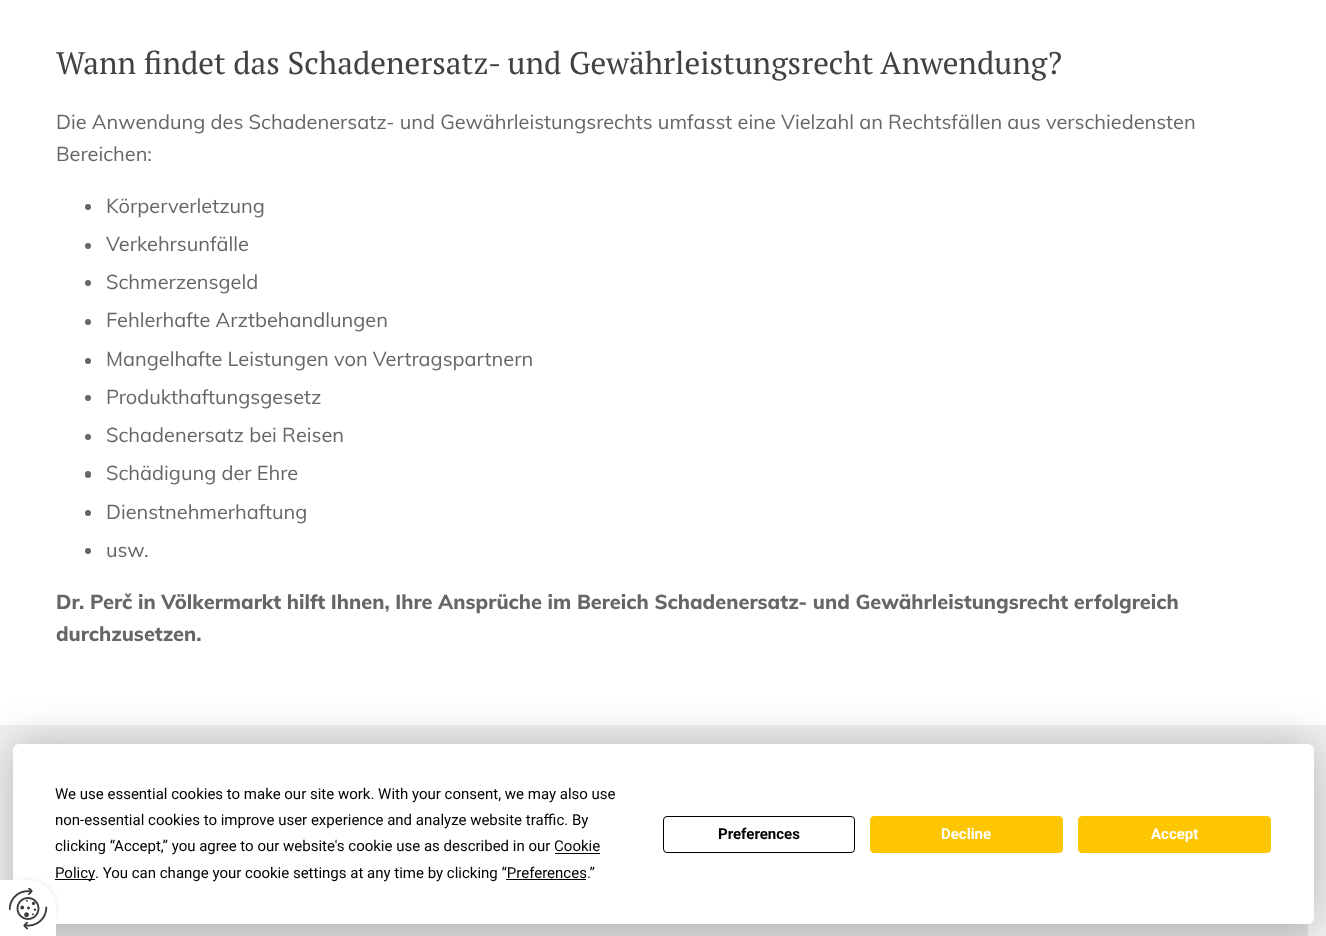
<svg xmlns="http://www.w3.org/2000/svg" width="1326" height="936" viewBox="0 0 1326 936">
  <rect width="100%" height="100%" fill="rgb(255,255,255)"/>
  <text x="56" y="74" font-family="PT Serif" font-size="31.25" fill="rgb(66,66,66)">Wann findet das Schadenersatz- und Gewährleistungsrecht Anwendung?</text>
  <g font-family="Muli" font-size="20" fill="rgb(102,102,102)">
    <text>
      <tspan x="56" y="129">Die Anwendung des Schadenersatz- und Gewährleistungsrechts umfasst eine Vielzahl an Rechtsfällen aus verschiedensten</tspan>
      <tspan x="56" y="161">Bereichen:</tspan>
    </text>
  </g>
  <circle cx="88" cy="207" r="3" fill="rgb(102,102,102)"/>
  <text x="106" y="213" font-family="Muli" font-size="20" fill="rgb(102,102,102)">Körperverletzung</text>
  <circle cx="88" cy="246" r="3" fill="rgb(102,102,102)"/>
  <text x="106" y="251" font-family="Muli" font-size="20" fill="rgb(102,102,102)">Verkehrsunfälle</text>
  <circle cx="88" cy="283" r="3" fill="rgb(102,102,102)"/>
  <text x="106" y="289" font-family="Muli" font-size="20" fill="rgb(102,102,102)">Schmerzensgeld</text>
  <circle cx="88" cy="322" r="3" fill="rgb(102,102,102)"/>
  <text x="106" y="327" font-family="Muli" font-size="20" fill="rgb(102,102,102)">Fehlerhafte Arztbehandlungen</text>
  <circle cx="88" cy="361" r="3" fill="rgb(102,102,102)"/>
  <text x="106" y="366" font-family="Muli" font-size="20" fill="rgb(102,102,102)">Mangelhafte Leistungen von Vertragspartnern</text>
  <circle cx="88" cy="398" r="3" fill="rgb(102,102,102)"/>
  <text x="106" y="404" font-family="Muli" font-size="20" fill="rgb(102,102,102)">Produkthaftungsgesetz</text>
  <circle cx="88" cy="437" r="3" fill="rgb(102,102,102)"/>
  <text x="106" y="442" font-family="Muli" font-size="20" fill="rgb(102,102,102)">Schadenersatz bei Reisen</text>
  <rect x="85" y="471" width="6" height="7" rx="3" fill="rgb(102,102,102)"/>
  <text x="106" y="480" font-family="Muli" font-size="20" fill="rgb(102,102,102)">Schädigung der Ehre</text>
  <circle cx="88" cy="513" r="3" fill="rgb(102,102,102)"/>
  <text x="106" y="519" font-family="Muli" font-size="20" fill="rgb(102,102,102)">Dienstnehmerhaftung</text>
  <circle cx="88" cy="551" r="3" fill="rgb(102,102,102)"/>
  <text x="106" y="557" font-family="Muli" font-size="20" fill="rgb(102,102,102)">usw.</text>
  <g font-family="Muli" font-size="20" font-weight="800" fill="rgb(102,102,102)">
    <text>
      <tspan x="56" y="609">Dr. Perč in Völkermarkt hilft Ihnen, Ihre Ansprüche im Bereich Schadenersatz- und Gewährleistungsrecht erfolgreich</tspan>
      <tspan x="56" y="641">durchzusetzen.</tspan>
    </text>
  </g>
  <rect x="0" y="725" width="1326" height="211" fill="rgb(241,241,241)"/>
  <rect x="56" y="924" width="1252" height="12" fill="rgb(221,221,221)"/>
  <rect x="13" y="744" width="1301" height="180" rx="6" fill="rgba(0,0,0,0.25)" filter="blur(22px)"/>
  <rect x="13" y="744" width="1301" height="180" rx="6" fill="rgb(255,255,255)"/>
  <g font-family="Roboto" font-size="15" fill="rgb(0,0,0)">
    <text>
      <tspan x="55" y="799">We use essential cookies to make our site work. With your consent, we may also use</tspan>
      <tspan x="55" y="825">non-essential cookies to improve user experience and analyze website traffic. By</tspan>
      <tspan x="55" y="851">clicking “Accept,” you agree to our website's cookie use as described in our Cookie</tspan>
    </text>
  </g>
  <rect x="55" y="879" width="40" height="1" fill="rgb(0,0,0)"/>
  <text x="55" y="878" font-family="Roboto" font-size="15" fill="rgb(0,0,0)">Policy</text>
  <rect x="555" y="853" width="45" height="1" fill="rgb(0,0,0)"/>
  <text x="95" y="878" font-family="Roboto" font-size="15" fill="rgb(0,0,0)">. You can change your cookie settings at any time by clicking “Preferences.”</text>
  <rect x="506" y="879" width="80" height="1" fill="rgb(0,0,0)"/>
  <rect x="663.5" y="816.5" width="191" height="36" rx="3.5" fill="none" stroke="rgb(0,0,0)"/>
  <text x="718" y="839" font-family="Roboto" font-size="15" font-weight="bold" fill="rgb(0,0,0)">Preferences</text>
  <rect x="870.5" y="816.5" width="192" height="36" rx="3.5" fill="rgb(254,198,0)" stroke="rgb(254,198,0)"/>
  <text x="941" y="839" font-family="Roboto" font-size="15" font-weight="bold" fill="rgb(255,255,255)">Decline</text>
  <rect x="1078.5" y="816.5" width="192" height="36" rx="3.5" fill="rgb(254,198,0)" stroke="rgb(254,198,0)"/>
  <text x="1151" y="839" font-family="Roboto" font-size="15" font-weight="bold" fill="rgb(255,255,255)">Accept</text>
  <rect x="0" y="880" width="56" height="56" rx="28" fill="rgba(0,0,0,0.1)" filter="blur(3px)"/>
  <path d="M0 880H28C43.5 880 56 892.5 56 908V936H0Z" fill="rgb(255,255,255)"/>
  <image x="9" y="888" width="39" height="42" href="pic1.png"/>
</svg>
